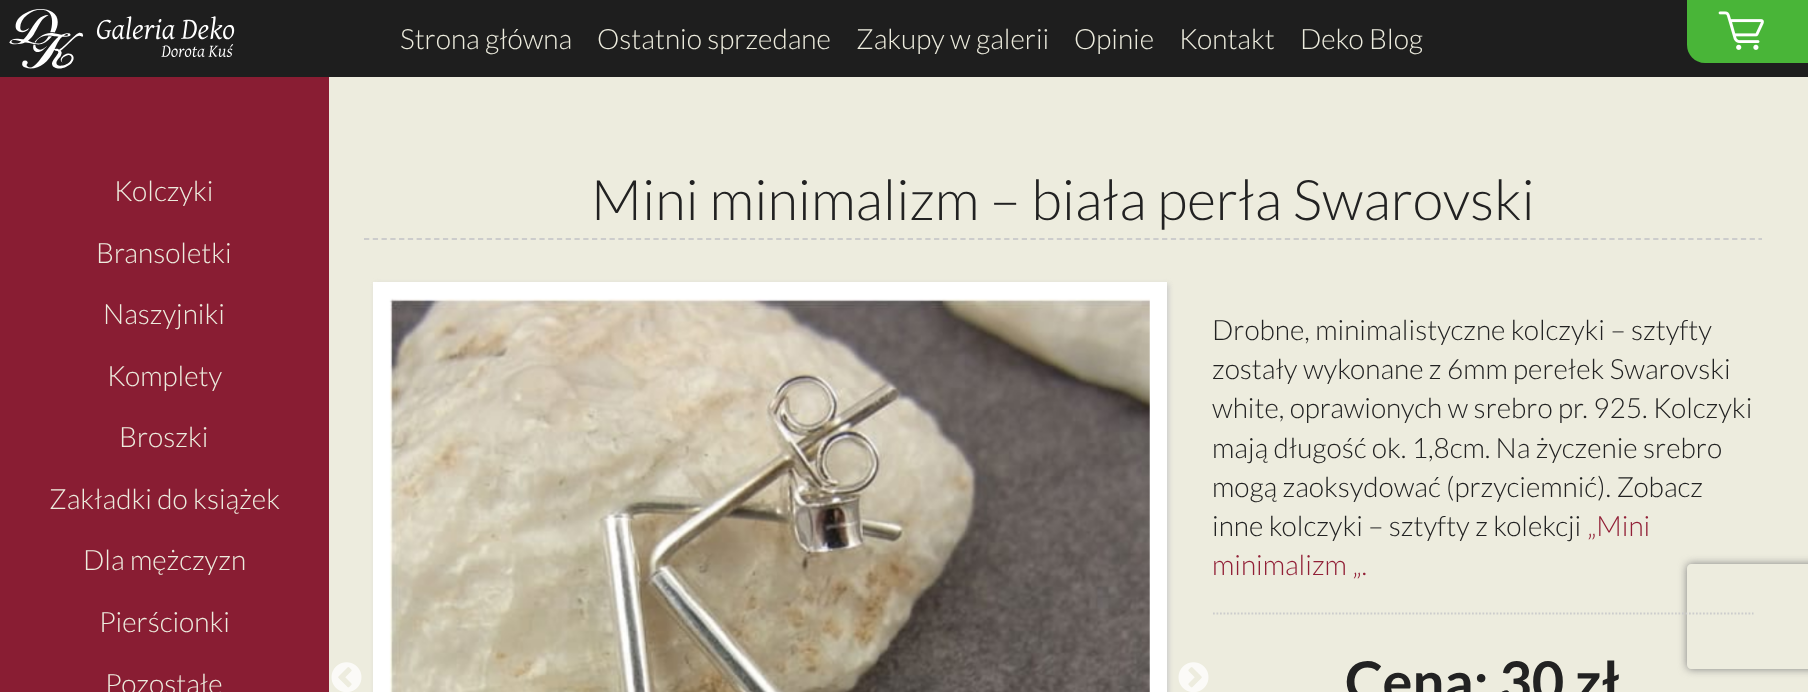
<svg xmlns="http://www.w3.org/2000/svg" width="1808" height="692" viewBox="0 0 1808 692">
  <defs>
    <clipPath id="clip1"><path d="M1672 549H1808V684H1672ZM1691 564H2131C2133 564 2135 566 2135 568V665C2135 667 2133 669 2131 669H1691C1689 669 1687 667 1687 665V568C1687 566 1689 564 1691 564Z" clip-rule="evenodd"/></clipPath>
  </defs>
  <rect width="100%" height="100%" fill="rgb(237,236,222)"/>
  <rect x="0" y="0" width="1808" height="77" fill="rgb(30,30,30)"/>
  <image x="9" y="9" width="226" height="60" href="pic1.png"/>
  <g font-family="Lato" font-size="28" font-weight="300" fill="rgb(237,236,222)">
    <text x="400" y="49">Strona główna</text>
    <text x="597" y="49">Ostatnio sprzedane</text>
    <text x="856" y="49">Zakupy w galerii</text>
    <text x="1074" y="49">Opinie</text>
    <text x="1179" y="49">Kontakt</text>
    <text x="1300" y="49">Deko Blog</text>
  </g>
  <path d="M1687 0H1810V63H1705C1695 63 1687 55 1687 45Z" fill="rgb(73,181,56)"/>
  <image x="1718" y="11" width="46" height="39" href="pic2.png"/>
  <rect x="0" y="77" width="329" height="615" fill="rgb(137,29,51)"/>
  <g font-family="Lato" font-size="28" font-weight="300" fill="rgb(237,236,222)">
    <text x="114" y="201">Kolczyki</text>
    <text x="96" y="263">Bransoletki</text>
    <text x="103" y="324">Naszyjniki</text>
    <text x="107" y="386">Komplety</text>
    <text x="119" y="447">Broszki</text>
    <text x="49" y="509">Zakładki do książek</text>
    <text x="83" y="570">Dla mężczyzn</text>
    <text x="99" y="632">Pierścionki</text>
    <text x="105" y="694">Pozostałe</text>
  </g>
  <path d="M364 239H1762" fill="none" stroke="rgb(204,204,204)" stroke-width="1.8" stroke-dasharray="5.25 3.52"/>
  <text x="591" y="220" font-family="Lato" font-size="56" font-weight="300" fill="rgb(34,34,34)">Mini minimalizm – biała perła Swarovski</text>
  <rect x="375" y="284" width="794" height="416" fill="rgb(204,204,204)" filter="blur(2.5px)"/>
  <image x="331" y="662" width="31" height="30" href="pic3.png"/>
  <rect x="373" y="282" width="794" height="410" fill="rgb(255,255,255)"/>
  <image x="389" y="298" width="761" height="394" href="pic4.png"/>
  <image x="1178" y="662" width="31" height="30" href="pic5.png"/>
  <g font-family="Lato" font-size="28" font-weight="300" fill="rgb(34,34,34)">
    <text>
      <tspan x="1212" y="340">Drobne, minimalistyczne kolczyki – sztyfty</tspan>
      <tspan x="1212" y="379">zostały wykonane z 6mm perełek Swarovski</tspan>
      <tspan x="1212" y="418">white, oprawionych w srebro pr. 925. Kolczyki</tspan>
      <tspan x="1212" y="458">mają długość ok. 1,8cm. Na życzenie srebro</tspan>
      <tspan x="1212" y="497">mogą zaoksydować (przyciemnić). Zobacz</tspan>
      <tspan x="1212" y="536">inne kolczyki – sztyfty z kolekcji</tspan>
    </text>
  </g>
  <g font-family="Lato" font-size="28" font-weight="300" fill="rgb(145,31,54)">
    <text x="1587" y="536">„Mini</text>
    <text x="1212" y="575">minimalizm „.</text>
  </g>
  <g clip-path="url(#clip1)">
    <rect x="1687" y="564" width="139" height="105" rx="4" fill="rgb(128,128,128)" filter="blur(4.5px)"/>
  </g>
  <path d="M1213 613.5H1753.5" fill="none" stroke="rgb(204,204,204)" stroke-width="1.8" stroke-dasharray="1.75 1.75"/>
  <text x="1345" y="702" font-family="Lato" font-size="56" font-weight="bold" fill="rgb(34,34,34)">Cena: 30 zł</text>
</svg>
